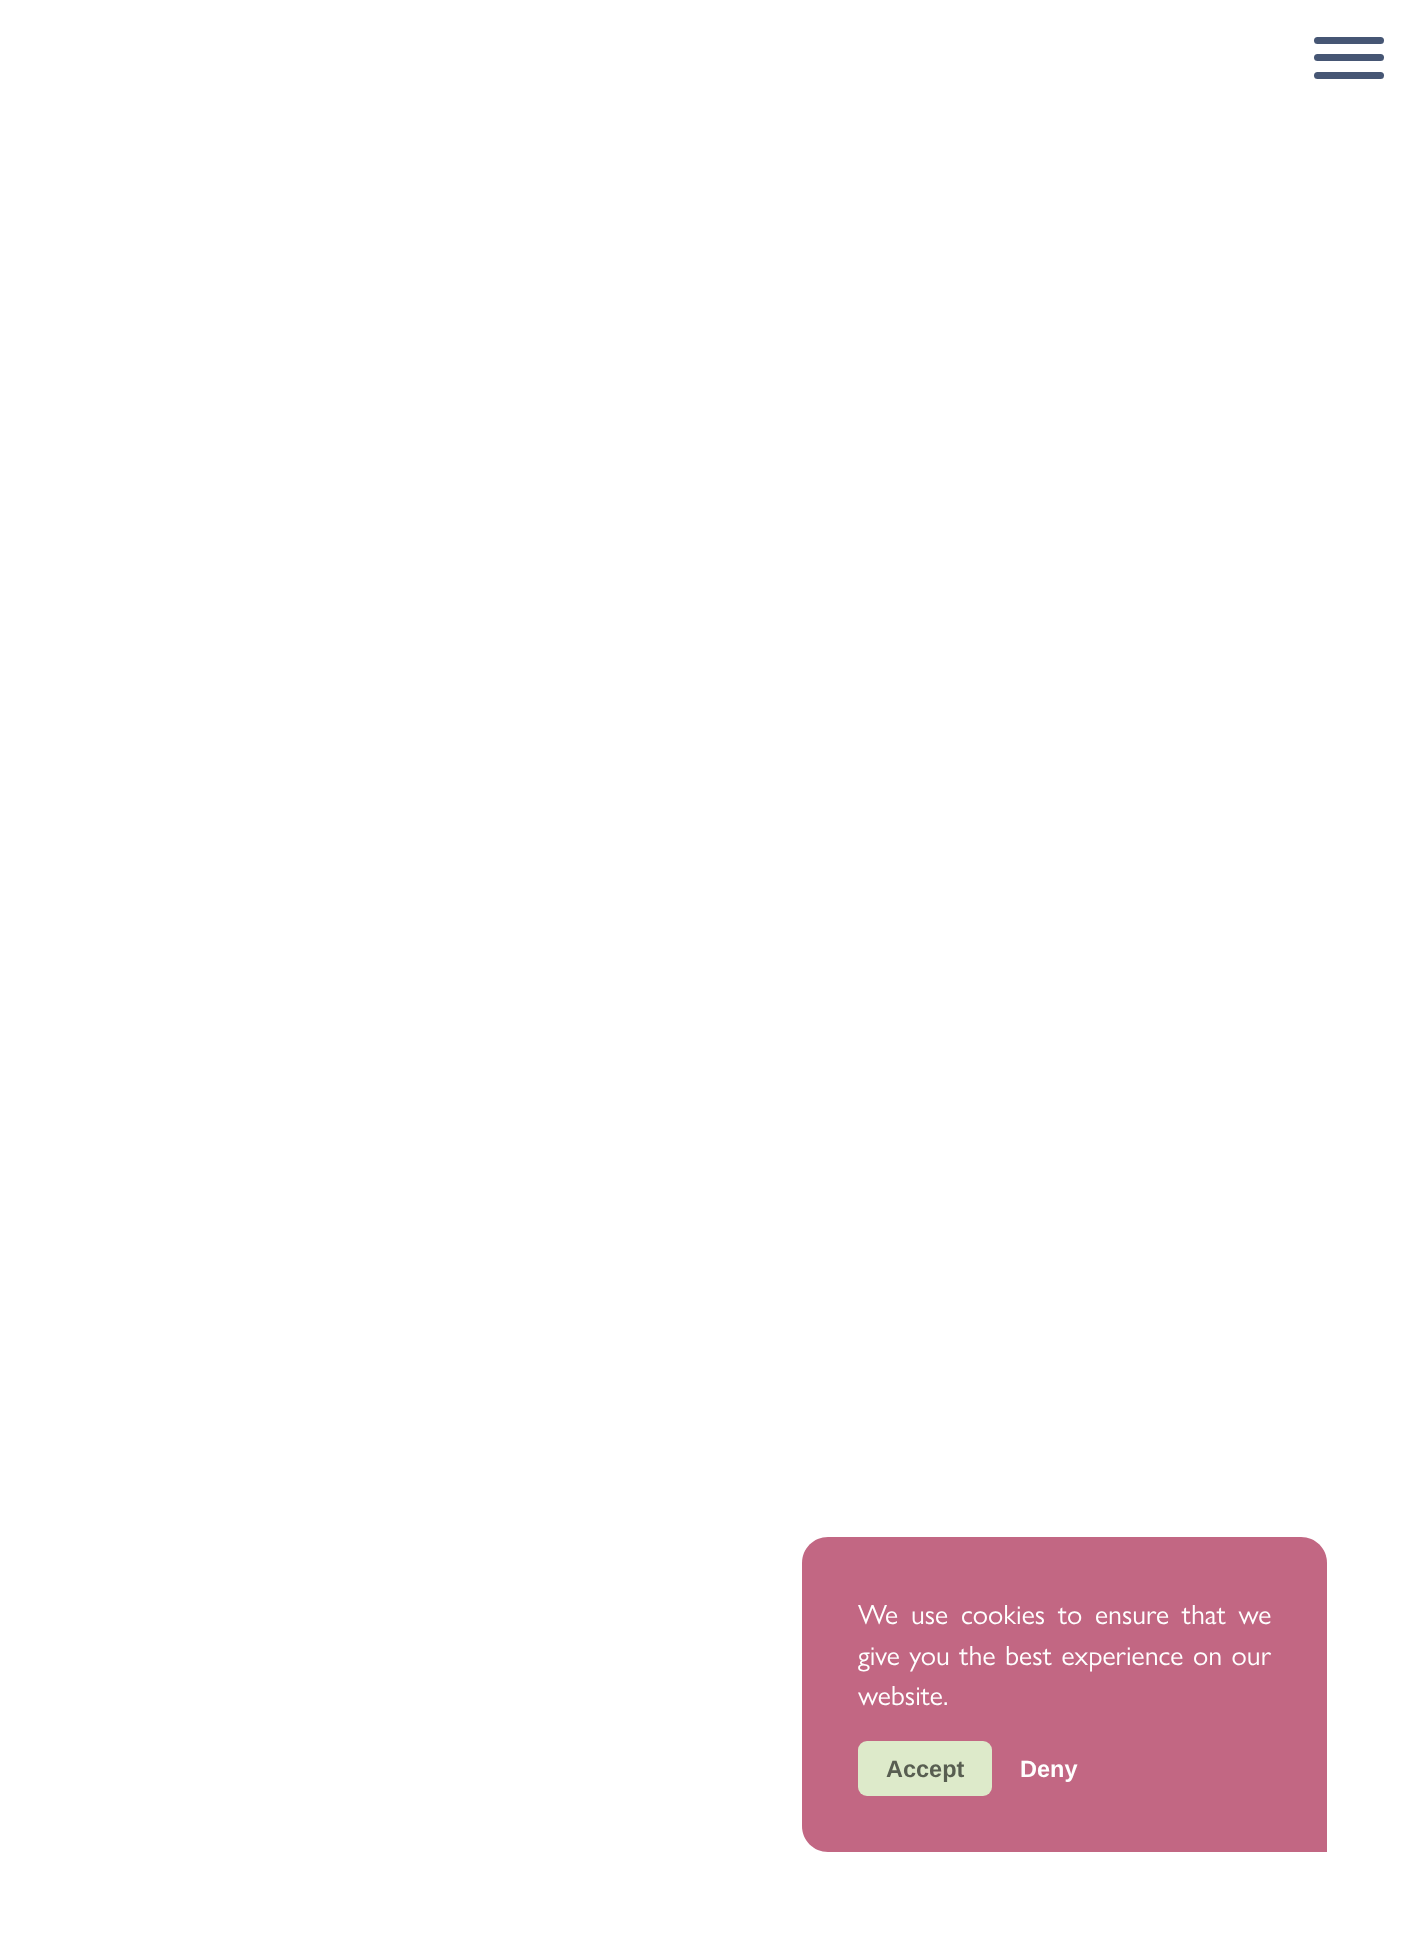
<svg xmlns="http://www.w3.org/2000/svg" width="1418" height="1943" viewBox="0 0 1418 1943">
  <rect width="100%" height="100%" fill="rgb(255,255,255)"/>
  <rect x="1314" y="72" width="70" height="7" rx="3.5" fill="rgb(70,86,116)"/>
  <rect x="1314" y="37" width="70" height="7" rx="3.5" fill="rgb(70,86,116)"/>
  <rect x="1314" y="54" width="70" height="7" rx="3.5" fill="rgb(70,86,116)"/>
  <path d="M828 1537H1301C1315.5 1537 1327 1548.5 1327 1563V1852H828C813.5 1852 802 1840.5 802 1826V1563C802 1548.5 813.5 1537 828 1537Z" fill="rgb(194,103,131)"/>
  <g font-family="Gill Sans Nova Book" font-size="28" fill="rgb(255,255,255)">
    <text>
      <tspan x="858" y="1624" word-spacing="5">We use cookies to ensure that we</tspan>
      <tspan x="858" y="1665" word-spacing="1.75">give you the best experience on our</tspan>
      <tspan x="858" y="1705">website.</tspan>
    </text>
  </g>
  <rect x="858" y="1741" width="134" height="55" rx="9" fill="rgb(221,234,202)"/>
  <text x="886" y="1777" font-family="Liberation Sans" font-size="23.5" font-weight="bold" fill="rgb(88,94,81)">Accept</text>
  <text x="1020" y="1777" font-family="Liberation Sans" font-size="23.5" font-weight="bold" fill="rgb(255,255,255)">Deny</text>
</svg>
